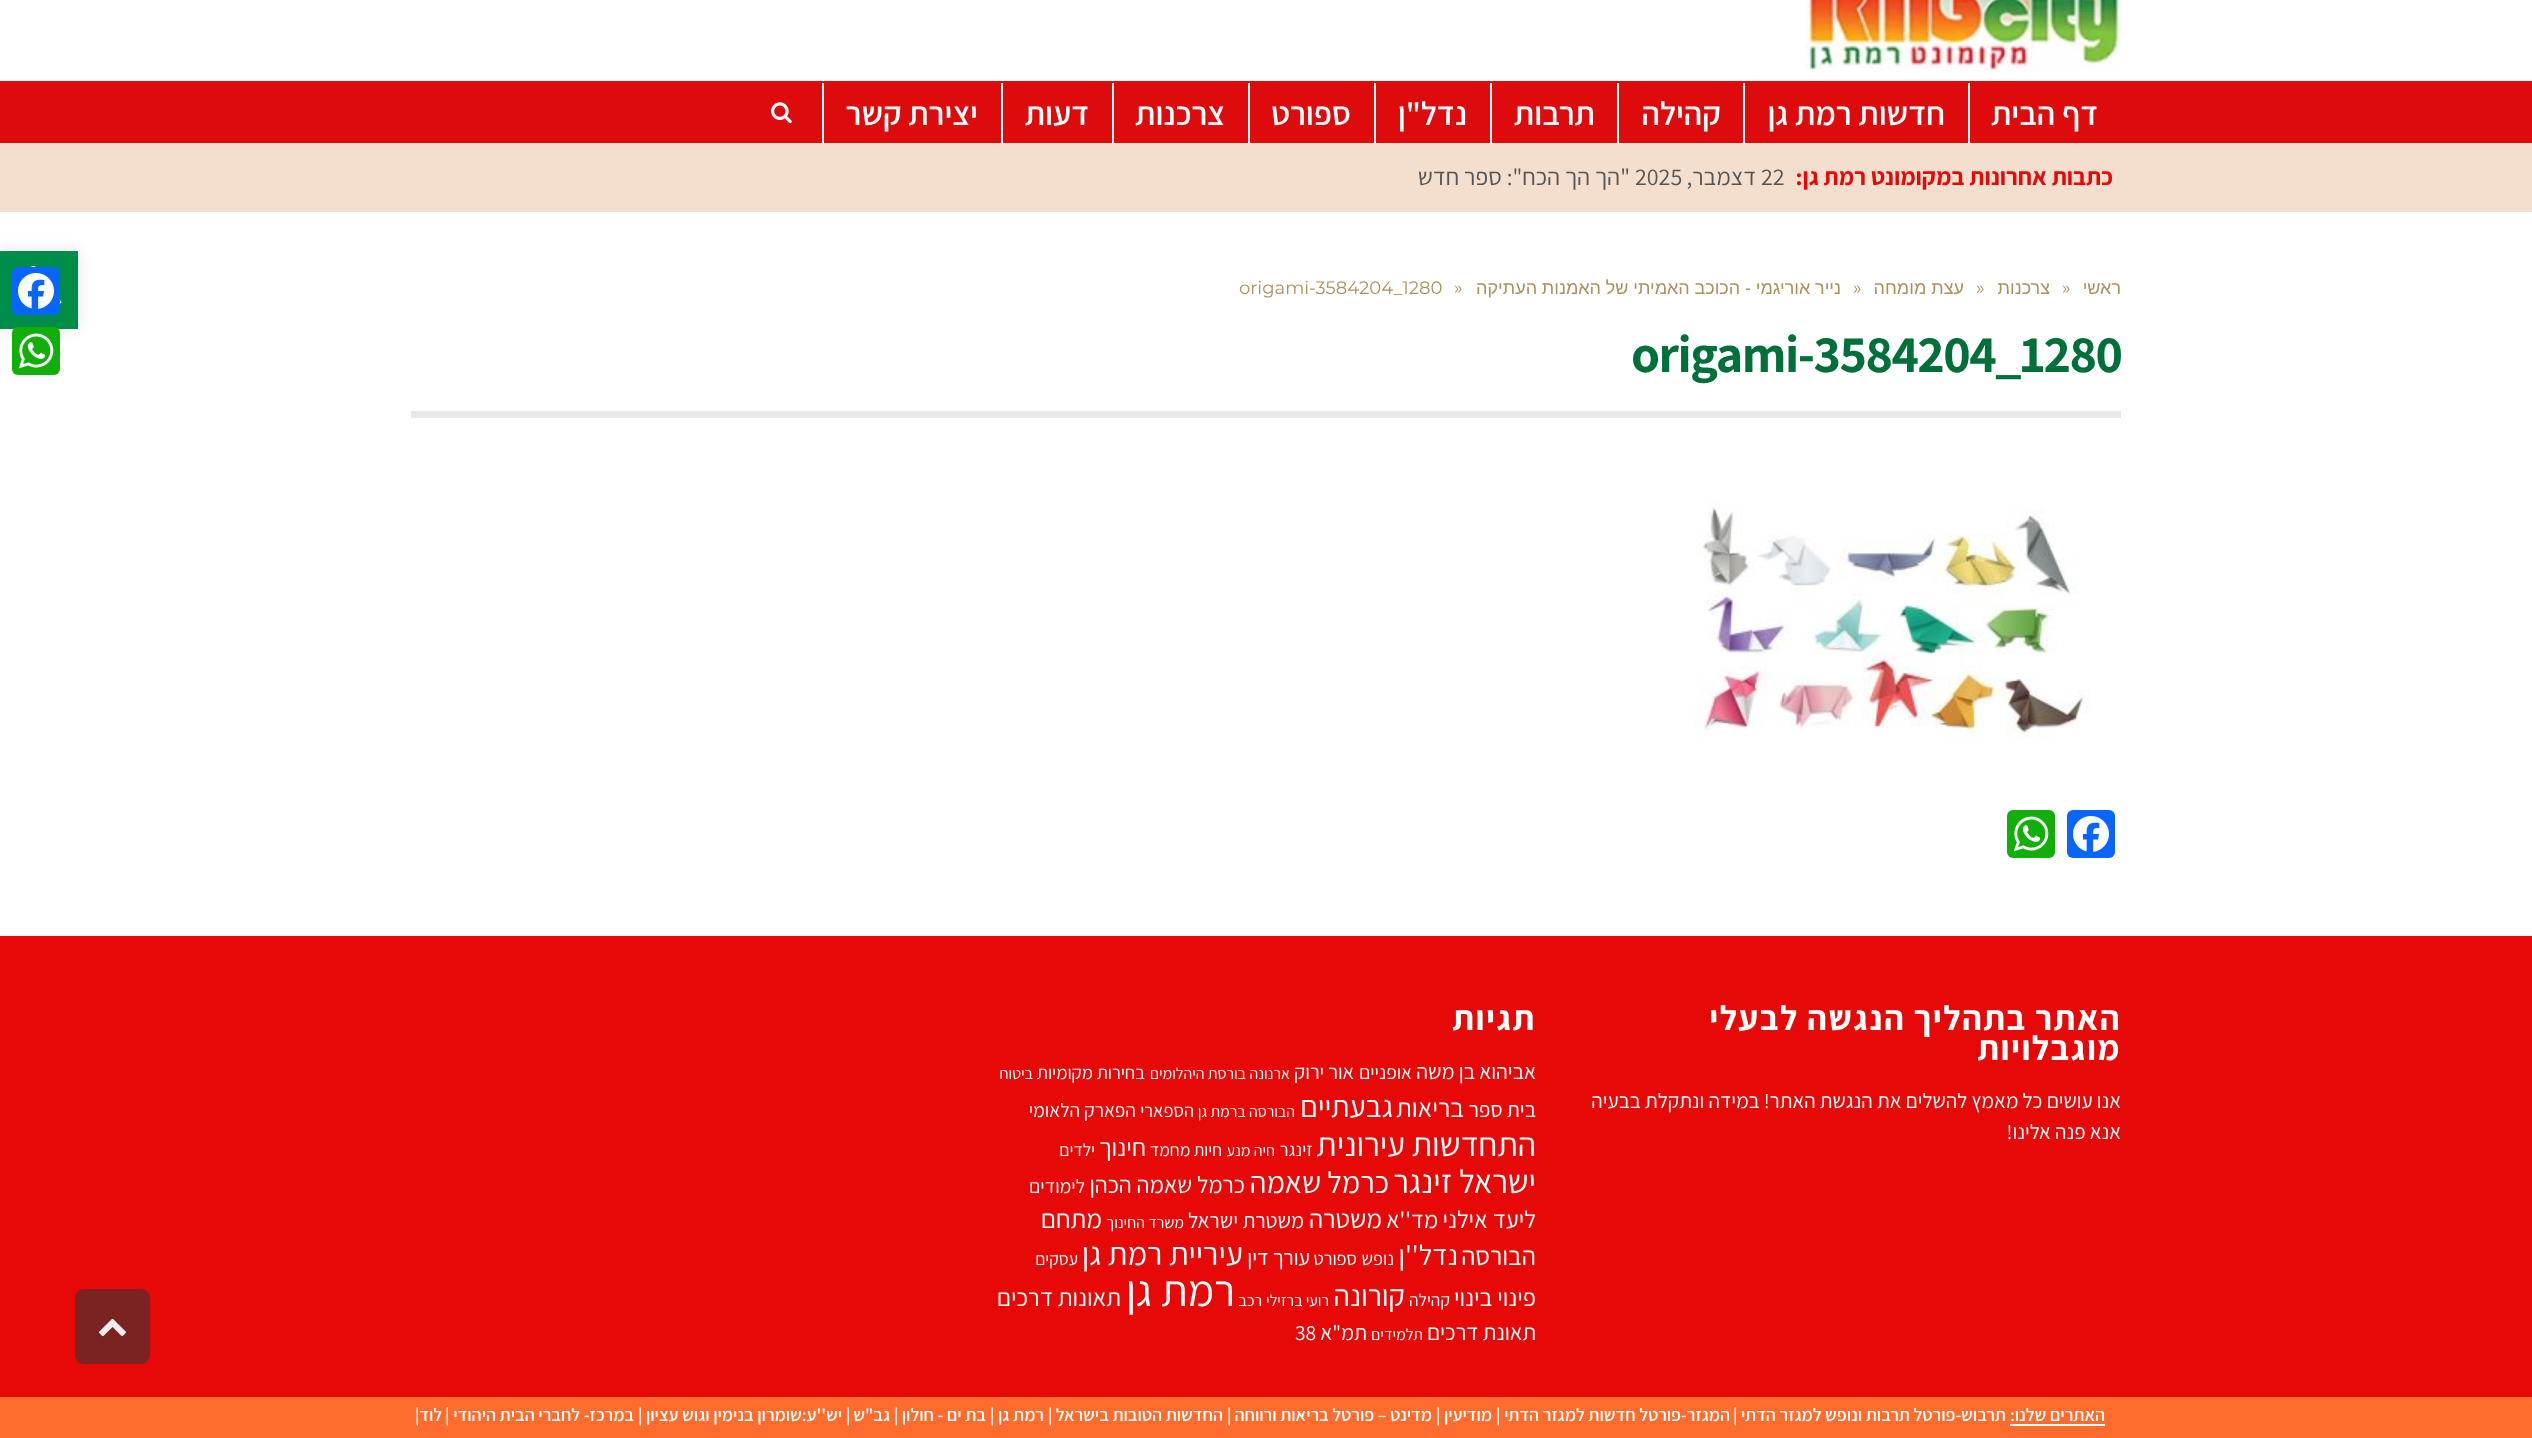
<svg xmlns="http://www.w3.org/2000/svg" width="2532" height="1438" viewBox="0 0 2532 1438">
  <rect width="100%" height="100%" fill="rgb(255,255,255)"/>
  <image x="1805" y="0" width="315" height="73" href="pic1.png"/>
  <rect x="0" y="81" width="2532" height="62" fill="rgb(221,11,11)"/>
  <rect x="1968" y="83" width="2" height="60" fill="rgb(255,255,255)"/>
  <text x="2098" y="125" font-family="Assistant" font-size="33" font-weight="600" direction="rtl" fill="rgb(255,255,255)">דף הבית</text>
  <rect x="1743" y="83" width="2" height="60" fill="rgb(255,255,255)"/>
  <text x="1945" y="125" font-family="Assistant" font-size="33" font-weight="600" direction="rtl" fill="rgb(255,255,255)">חדשות רמת גן</text>
  <rect x="1617" y="83" width="2" height="60" fill="rgb(255,255,255)"/>
  <text x="1721" y="125" font-family="Assistant" font-size="33" font-weight="600" direction="rtl" fill="rgb(255,255,255)">קהילה</text>
  <rect x="1490" y="83" width="2" height="60" fill="rgb(255,255,255)"/>
  <text x="1595" y="125" font-family="Assistant" font-size="33" font-weight="600" direction="rtl" fill="rgb(255,255,255)">תרבות</text>
  <rect x="1374" y="83" width="2" height="60" fill="rgb(255,255,255)"/>
  <text x="1467" y="125" font-family="Assistant" font-size="33" font-weight="600" direction="rtl" fill="rgb(255,255,255)">נדל"ן</text>
  <rect x="1248" y="83" width="2" height="60" fill="rgb(255,255,255)"/>
  <text x="1351" y="125" font-family="Assistant" font-size="33" font-weight="600" direction="rtl" fill="rgb(255,255,255)">ספורט</text>
  <rect x="1112" y="83" width="2" height="60" fill="rgb(255,255,255)"/>
  <text x="1225" y="125" font-family="Assistant" font-size="33" font-weight="600" direction="rtl" fill="rgb(255,255,255)">צרכנות</text>
  <rect x="1001" y="83" width="2" height="60" fill="rgb(255,255,255)"/>
  <text x="1089" y="125" font-family="Assistant" font-size="33" font-weight="600" direction="rtl" fill="rgb(255,255,255)">דעות</text>
  <rect x="822" y="83" width="2" height="60" fill="rgb(255,255,255)"/>
  <text x="978" y="125" font-family="Assistant" font-size="33" font-weight="600" direction="rtl" fill="rgb(255,255,255)">יצירת קשר</text>
  <image x="771" y="102" width="21" height="22" href="pic2.png"/>
  <rect x="0" y="143" width="2532" height="69" fill="rgb(244,222,205)"/>
  <text x="2113" y="185" font-family="Assistant" font-size="24" font-weight="bold" direction="rtl" fill="rgb(231,8,8)">כתבות אחרונות במקומונט רמת גן:</text>
  <text x="1761" y="185" font-family="Assistant" font-size="24" fill="rgb(84,84,84)">22</text>
  <text x="1756" y="185" font-family="Assistant" font-size="24" direction="rtl" fill="rgb(84,84,84)">דצמבר,</text>
  <text x="1635" y="185" font-family="Assistant" font-size="24" fill="rgb(84,84,84)">2025</text>
  <text x="1630" y="185" font-family="Assistant" font-size="24" direction="rtl" fill="rgb(84,84,84)">"הך הך הכח": ספר חדש</text>
  <text x="2121" y="294" font-family="Liberation Sans" font-size="18" direction="rtl" fill="rgb(172,145,93)">ראשי</text>
  <text x="2062" y="294" font-family="Montserrat" font-size="18" fill="rgb(172,145,93)">»</text>
  <text x="2050" y="294" font-family="Liberation Sans" font-size="18" direction="rtl" fill="rgb(172,145,93)">צרכנות</text>
  <text x="1976" y="294" font-family="Montserrat" font-size="18" fill="rgb(172,145,93)">»</text>
  <text x="1964" y="294" font-family="Liberation Sans" font-size="18" direction="rtl" fill="rgb(172,145,93)">עצת מומחה</text>
  <text x="1853" y="294" font-family="Montserrat" font-size="18" fill="rgb(172,145,93)">»</text>
  <text x="1841" y="294" word-spacing="-0.25" font-family="Liberation Sans" font-size="18" direction="rtl" fill="rgb(172,145,93)">נייר אוריגמי - הכוכב האמיתי של האמנות העתיקה</text>
  <g font-family="Montserrat" font-size="18" fill="rgb(172,145,93)">
    <text x="1454" y="294">»</text>
    <text x="1239" y="294">origami-3584204_1280</text>
  </g>
  <text x="1631" y="372" font-family="Assistant" font-size="52.5" font-weight="bold" letter-spacing="-1.5" fill="rgb(0,112,59)">origami-3584204_1280</text>
  <rect x="411" y="411" width="1710" height="7" fill="rgb(233,233,233)"/>
  <image x="1694" y="502" width="397" height="242" href="pic3.png"/>
  <rect x="2067" y="810" width="48" height="48" rx="6" fill="rgb(8,102,255)"/>
  <image x="2073" y="816" width="36" height="36" href="pic4.png"/>
  <rect x="2007" y="810" width="48" height="48" rx="6" fill="rgb(18,175,10)"/>
  <image x="2013" y="816" width="36" height="36" href="pic5.png"/>
  <rect x="0" y="936" width="2532" height="461" fill="rgb(231,8,8)"/>
  <g font-family="Assistant" font-size="34.5" font-weight="bold" letter-spacing="1.5" direction="rtl" fill="rgb(255,255,255)">
    <text>
      <tspan x="2121" y="1030">האתר בתהליך הנגשה לבעלי</tspan>
      <tspan x="2121" y="1060">מוגבלויות</tspan>
    </text>
  </g>
  <g font-family="Assistant" font-size="21" direction="rtl" fill="rgb(255,255,255)">
    <text>
      <tspan x="2121" y="1108">אנו עושים כל מאמץ להשלים את הנגשת האתר! במידה ונתקלת בבעיה</tspan>
      <tspan x="2121" y="1139">אנא פנה אלינו!</tspan>
    </text>
  </g>
  <text x="1536" y="1030" font-family="Assistant" font-size="34.5" font-weight="bold" letter-spacing="1.5" direction="rtl" fill="rgb(255,255,255)">תגיות</text>
  <text x="1536" y="1079" font-family="Assistant" font-size="21.5" direction="rtl" fill="rgb(255,255,255)">אביהוא בן משה</text>
  <text x="1412" y="1079" font-family="Assistant" font-size="19.5" direction="rtl" fill="rgb(255,255,255)">אופניים</text>
  <text x="1354" y="1079" font-family="Assistant" font-size="20.5" direction="rtl" fill="rgb(255,255,255)">אור ירוק</text>
  <g font-family="Assistant" font-size="16" direction="rtl" fill="rgb(255,255,255)">
    <text x="1290" y="1079">ארנונה</text>
    <text x="1246" y="1079">בורסת היהלומים</text>
  </g>
  <text x="1145" y="1079" font-family="Assistant" font-size="18.5" direction="rtl" fill="rgb(255,255,255)">בחירות מקומיות</text>
  <text x="1033" y="1079" font-family="Assistant" font-size="16" direction="rtl" fill="rgb(255,255,255)">ביטוח</text>
  <text x="1536" y="1117" font-family="Assistant" font-size="21.5" direction="rtl" fill="rgb(255,255,255)">בית ספר</text>
  <text x="1464" y="1117" font-family="Assistant" font-size="26" direction="rtl" fill="rgb(255,255,255)">בריאות</text>
  <text x="1393" y="1117" font-family="Assistant" font-size="30.5" direction="rtl" fill="rgb(255,255,255)">גבעתיים</text>
  <text x="1295" y="1117" font-family="Assistant" font-size="16" direction="rtl" fill="rgb(255,255,255)">הבורסה ברמת גן</text>
  <text x="1194" y="1117" font-family="Assistant" font-size="18.5" direction="rtl" fill="rgb(255,255,255)">הספארי</text>
  <text x="1136" y="1117" font-family="Assistant" font-size="19.5" direction="rtl" fill="rgb(255,255,255)">הפארק הלאומי</text>
  <text x="1536" y="1156" font-family="Assistant" font-size="33.5" direction="rtl" fill="rgb(255,255,255)">התחדשות עירונית</text>
  <text x="1313" y="1156" font-family="Assistant" font-size="18.5" direction="rtl" fill="rgb(255,255,255)">זינגר</text>
  <text x="1275" y="1156" font-family="Assistant" font-size="16" direction="rtl" fill="rgb(255,255,255)">חיה מנע</text>
  <text x="1222" y="1156" font-family="Assistant" font-size="17.5" direction="rtl" fill="rgb(255,255,255)">חיות מחמד</text>
  <text x="1146" y="1156" font-family="Assistant" font-size="25" direction="rtl" fill="rgb(255,255,255)">חינוך</text>
  <text x="1095" y="1156" font-family="Assistant" font-size="17.5" direction="rtl" fill="rgb(255,255,255)">ילדים</text>
  <text x="1536" y="1193" font-family="Assistant" font-size="33" direction="rtl" fill="rgb(255,255,255)">ישראל זינגר</text>
  <text x="1389" y="1193" font-family="Assistant" font-size="30.5" direction="rtl" fill="rgb(255,255,255)">כרמל שאמה</text>
  <text x="1245" y="1193" font-family="Assistant" font-size="23.75" direction="rtl" fill="rgb(255,255,255)">כרמל שאמה הכהן</text>
  <text x="1085" y="1193" font-family="Assistant" font-size="19.5" direction="rtl" fill="rgb(255,255,255)">לימודים</text>
  <text x="1536" y="1228" font-family="Assistant" font-size="24.5" direction="rtl" fill="rgb(255,255,255)">ליעד אילני</text>
  <text x="1438" y="1228" font-family="Assistant" font-size="23.75" direction="rtl" fill="rgb(255,255,255)">מד''א</text>
  <text x="1382" y="1228" font-family="Assistant" font-size="26" direction="rtl" fill="rgb(255,255,255)">משטרה</text>
  <text x="1304" y="1228" font-family="Assistant" font-size="21.5" direction="rtl" fill="rgb(255,255,255)">משטרת ישראל</text>
  <text x="1184" y="1228" font-family="Assistant" font-size="16" direction="rtl" fill="rgb(255,255,255)">משרד החינוך</text>
  <g font-family="Assistant" font-size="26" direction="rtl" fill="rgb(255,255,255)">
    <text x="1102" y="1228">מתחם</text>
    <text x="1536" y="1265">הבורסה</text>
  </g>
  <text x="1458" y="1265" font-family="Assistant" font-size="28.5" direction="rtl" fill="rgb(255,255,255)">נדל''ן</text>
  <g font-family="Assistant" font-size="18.5" direction="rtl" fill="rgb(255,255,255)">
    <text x="1394" y="1265">נופש</text>
    <text x="1357" y="1265">ספורט</text>
  </g>
  <text x="1310" y="1265" font-family="Assistant" font-size="21.5" direction="rtl" fill="rgb(255,255,255)">עורך דין</text>
  <text x="1243" y="1265" font-family="Assistant" font-size="32.5" direction="rtl" fill="rgb(255,255,255)">עיריית רמת גן</text>
  <text x="1078" y="1265" font-family="Assistant" font-size="17.5" direction="rtl" fill="rgb(255,255,255)">עסקים</text>
  <text x="1536" y="1306" font-family="Assistant" font-size="24.5" direction="rtl" fill="rgb(255,255,255)">פינוי בינוי</text>
  <text x="1450" y="1306" font-family="Assistant" font-size="17.5" direction="rtl" fill="rgb(255,255,255)">קהילה</text>
  <text x="1405" y="1306" font-family="Assistant" font-size="30" direction="rtl" fill="rgb(255,255,255)">קורונה</text>
  <g font-family="Assistant" font-size="16" direction="rtl" fill="rgb(255,255,255)">
    <text x="1329" y="1306">רועי ברזילי</text>
    <text x="1262" y="1306">רכב</text>
  </g>
  <text x="1235" y="1306" font-family="Assistant" font-size="44" direction="rtl" fill="rgb(255,255,255)">רמת גן</text>
  <text x="1121" y="1306" font-family="Assistant" font-size="24.5" direction="rtl" fill="rgb(255,255,255)">תאונות דרכים</text>
  <text x="1536" y="1340" font-family="Assistant" font-size="22.5" direction="rtl" fill="rgb(255,255,255)">תאונת דרכים</text>
  <text x="1423" y="1340" font-family="Assistant" font-size="16" direction="rtl" fill="rgb(255,255,255)">תלמידים</text>
  <text x="1367" y="1340" font-family="Assistant" font-size="21.5" direction="rtl" fill="rgb(255,255,255)">תמ"א</text>
  <text x="1295" y="1340" font-family="Assistant" font-size="21.5" fill="rgb(255,255,255)">38</text>
  <rect x="0" y="1397" width="2532" height="41" fill="rgb(255,108,45)"/>
  <text x="2105" y="1421" font-family="Assistant" font-size="18" font-weight="600" direction="rtl" fill="rgb(255,255,255)">האתרים שלנו:</text>
  <rect x="2010" y="1424" width="95" height="2" fill="rgb(255,255,255)"/>
  <text x="2006" y="1421" font-family="Assistant" font-size="18" font-weight="600" direction="rtl" fill="rgb(255,255,255)">תרבוש-פורטל תרבות ונופש למגזר הדתי</text>
  <text x="1733" y="1421" font-family="Assistant" font-size="18" font-weight="600" fill="rgb(255,255,255)">|</text>
  <text x="1730" y="1421" font-family="Assistant" font-size="18" font-weight="600" direction="rtl" fill="rgb(255,255,255)">המגזר-פורטל חדשות למגזר הדתי</text>
  <text x="1496" y="1421" font-family="Assistant" font-size="18" font-weight="600" fill="rgb(255,255,255)">|</text>
  <text x="1492" y="1421" font-family="Assistant" font-size="18" font-weight="600" direction="rtl" fill="rgb(255,255,255)">מודיעין</text>
  <text x="1436" y="1421" font-family="Assistant" font-size="18" font-weight="600" fill="rgb(255,255,255)">|</text>
  <text x="1432" y="1421" font-family="Assistant" font-size="18" font-weight="600" direction="rtl" fill="rgb(255,255,255)">מדינט – פורטל בריאות ורווחה</text>
  <text x="1227" y="1421" font-family="Assistant" font-size="18" font-weight="600" fill="rgb(255,255,255)">|</text>
  <text x="1223" y="1421" font-family="Assistant" font-size="18" font-weight="600" direction="rtl" fill="rgb(255,255,255)">החדשות הטובות בישראל</text>
  <text x="1048" y="1421" font-family="Assistant" font-size="18" font-weight="600" fill="rgb(255,255,255)">|</text>
  <text x="1044" y="1421" font-family="Assistant" font-size="18" font-weight="600" direction="rtl" fill="rgb(255,255,255)">רמת גן</text>
  <text x="990" y="1421" font-family="Assistant" font-size="18" font-weight="600" fill="rgb(255,255,255)">|</text>
  <text x="986" y="1421" font-family="Assistant" font-size="18" font-weight="600" direction="rtl" fill="rgb(255,255,255)">בת ים - חולון</text>
  <text x="894" y="1421" font-family="Assistant" font-size="18" font-weight="600" fill="rgb(255,255,255)">|</text>
  <text x="890" y="1421" font-family="Assistant" font-size="18" font-weight="600" direction="rtl" fill="rgb(255,255,255)">גב"ש</text>
  <text x="846" y="1421" font-family="Assistant" font-size="18" font-weight="600" fill="rgb(255,255,255)">|</text>
  <text x="842" y="1421" font-family="Assistant" font-size="18" font-weight="600" direction="rtl" fill="rgb(255,255,255)">יש''ע:שומרון בנימין וגוש עציון</text>
  <text x="638" y="1421" font-family="Assistant" font-size="18" font-weight="600" fill="rgb(255,255,255)">|</text>
  <text x="634" y="1421" font-family="Assistant" font-size="18" font-weight="600" direction="rtl" fill="rgb(255,255,255)">במרכז- לחברי הבית היהודי</text>
  <text x="445" y="1421" font-family="Assistant" font-size="18" font-weight="600" fill="rgb(255,255,255)">|</text>
  <text x="442" y="1421" font-family="Assistant" font-size="18" font-weight="600" direction="rtl" fill="rgb(255,255,255)">לוד</text>
  <text x="415" y="1421" font-family="Assistant" font-size="18" font-weight="600" fill="rgb(255,255,255)">|</text>
  <rect x="0" y="251" width="78" height="78" fill="rgba(0,0,0,0.1)" filter="blur(7.5px)"/>
  <rect x="0" y="251" width="78" height="78" fill="rgb(0,141,74)"/>
  <image x="30" y="266" width="32" height="38" href="pic6.png"/>
  <rect x="12" y="267" width="48" height="48" rx="6" fill="rgb(8,102,255)"/>
  <image x="18" y="273" width="36" height="36" href="pic4.png"/>
  <rect x="12" y="327" width="48" height="48" rx="6" fill="rgb(18,175,10)"/>
  <image x="18" y="333" width="36" height="36" href="pic5.png"/>
  <rect x="75" y="1289" width="75" height="75" rx="9" fill="rgb(123,34,34)"/>
  <image x="99" y="1318" width="27" height="19" href="pic7.png"/>
</svg>
